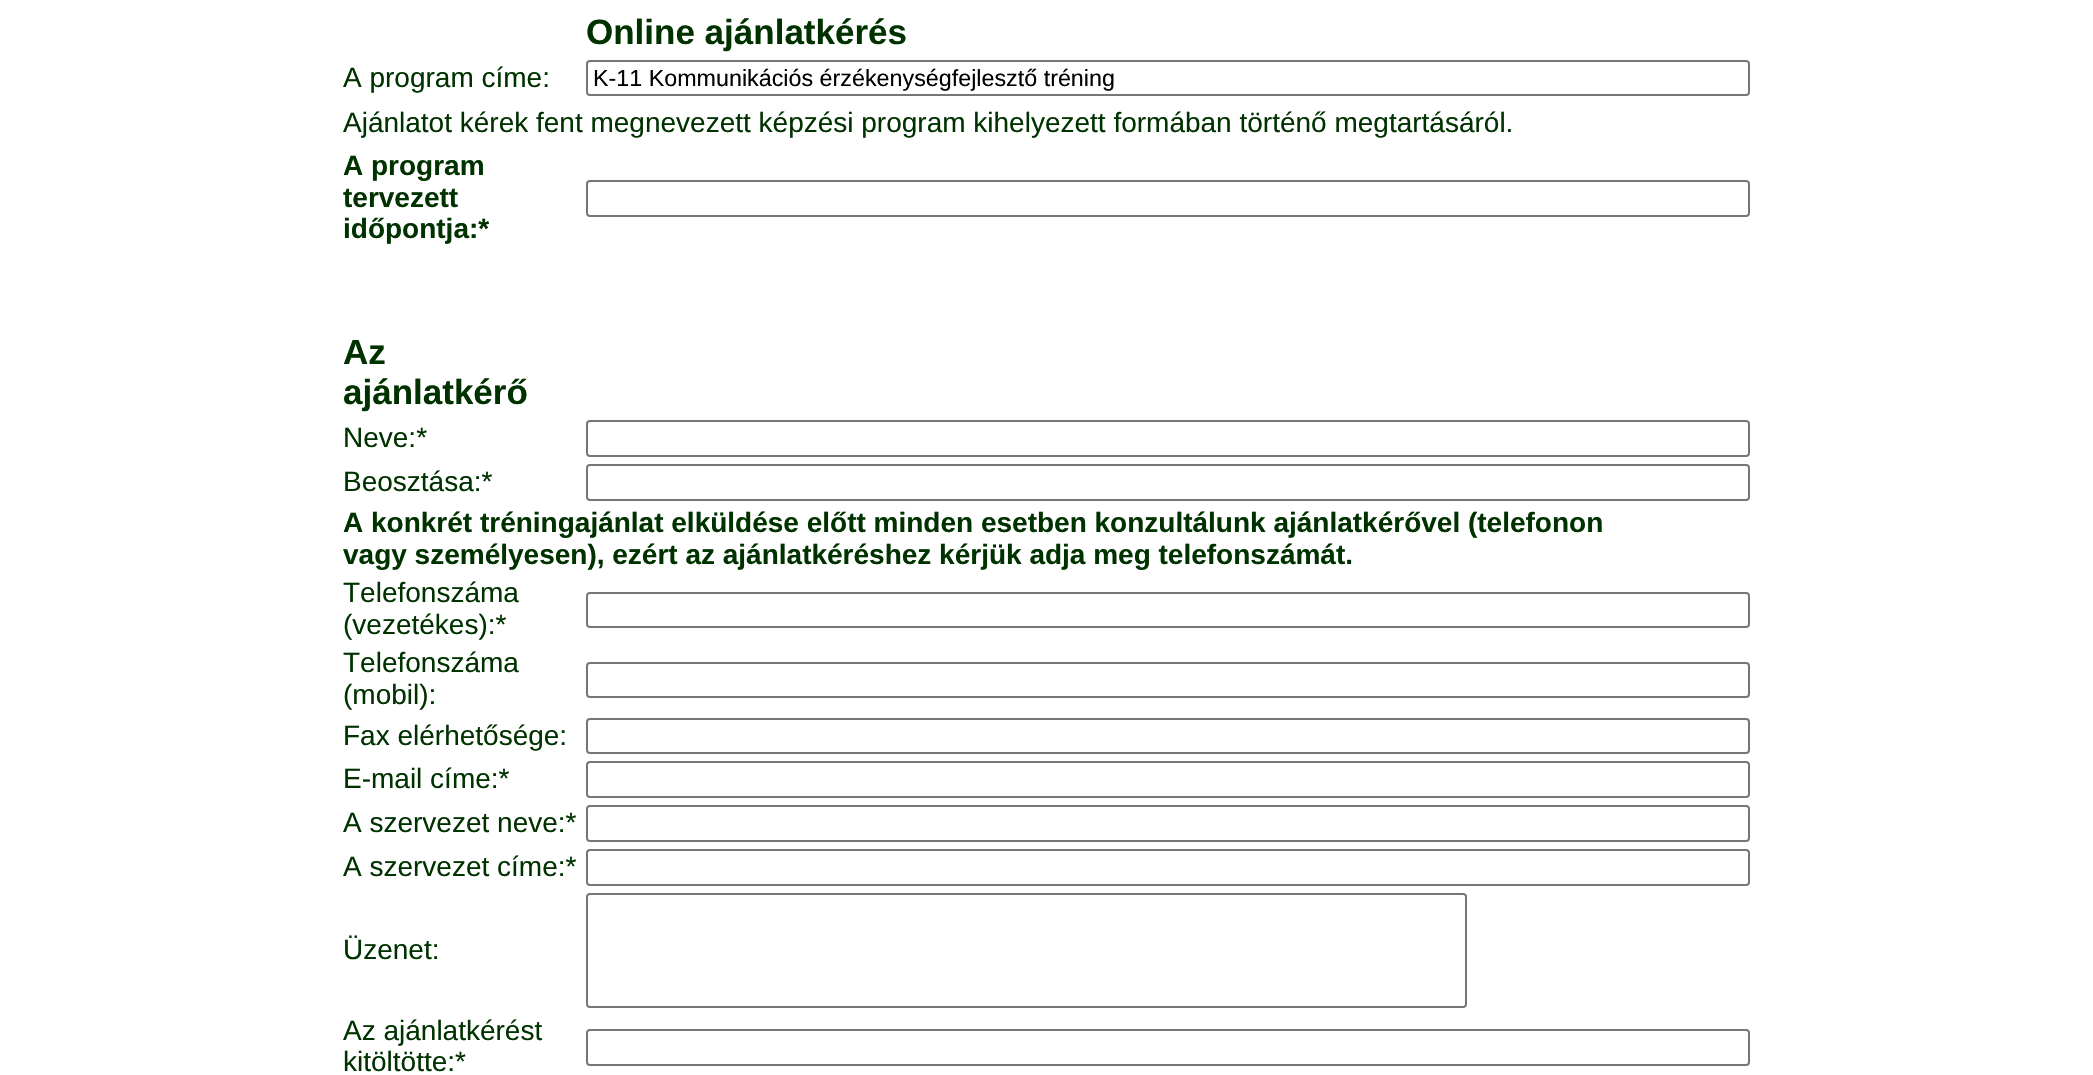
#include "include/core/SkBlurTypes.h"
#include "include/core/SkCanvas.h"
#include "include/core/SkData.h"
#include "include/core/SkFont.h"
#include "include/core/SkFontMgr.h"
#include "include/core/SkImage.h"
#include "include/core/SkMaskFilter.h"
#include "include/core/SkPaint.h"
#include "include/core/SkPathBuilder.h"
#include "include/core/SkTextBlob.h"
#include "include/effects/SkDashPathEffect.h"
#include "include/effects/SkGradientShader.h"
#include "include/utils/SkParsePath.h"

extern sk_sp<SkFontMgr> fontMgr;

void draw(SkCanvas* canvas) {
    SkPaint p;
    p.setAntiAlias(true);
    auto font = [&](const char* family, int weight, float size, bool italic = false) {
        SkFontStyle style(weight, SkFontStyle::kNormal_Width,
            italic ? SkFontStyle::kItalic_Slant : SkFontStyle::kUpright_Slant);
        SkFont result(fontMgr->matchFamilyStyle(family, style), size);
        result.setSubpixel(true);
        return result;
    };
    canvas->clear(0xFFFFFFFF);
    auto font1 = font("Liberation Sans", 700, 35);
    p.setColor(0xFF003200);
    canvas->drawString("Online ajánlatkérés", 586, 44, font1, p);
    auto font2 = font("Liberation Sans", 400, 28);
    canvas->drawString("A program címe:", 343, 87, font2, p);
    p.setStyle(SkPaint::kStroke_Style);
    p.setStrokeWidth(2);
    p.setColor(0xFF767676);
    canvas->drawRoundRect(SkRect::MakeLTRB(587, 61, 1749, 95), 3, 3, p);
    auto font3 = font("Liberation Sans", 400, 23.3f);
    p.setStyle(SkPaint::kFill_Style);
    p.setColor(0xFF000000);
    canvas->drawString("K-11 Kommunikációs érzékenységfejlesztő tréning", 593, 86, font3, p);
    p.setColor(0xFF003200);
    canvas->drawString("Ajánlatot kérek fent megnevezett képzési program kihelyezett formában történő megtartásáról.", 343, 132, font2, p);
    auto font4 = font("Liberation Sans", 700, 28);
    {
        const struct { const char* s; float x, y; } items[] = {
            {"A program", 343, 175},
            {"tervezett", 343, 207},
            {"időpontja:*", 343, 238},
        };
        for (auto [s, x, y] : items) {
            canvas->drawString(s, x, y, font4, p);
        }
    }
    p.setStyle(SkPaint::kStroke_Style);
    p.setColor(0xFF767676);
    canvas->drawRoundRect(SkRect::MakeLTRB(587, 181, 1749, 216), 3, 3, p);
    p.setStyle(SkPaint::kFill_Style);
    p.setColor(0xFF003200);
    canvas->drawString("Az", 343, 364, font1, p);
    canvas->drawString("ajánlatkérő", 343, 404, font1, p);
    canvas->drawString("Neve:*", 343, 447, font2, p);
    p.setStyle(SkPaint::kStroke_Style);
    p.setColor(0xFF767676);
    canvas->drawRoundRect(SkRect::MakeLTRB(587, 421, 1749, 456), 3, 3, p);
    p.setStyle(SkPaint::kFill_Style);
    p.setColor(0xFF003200);
    canvas->drawString("Beosztása:*", 343, 491, font2, p);
    p.setStyle(SkPaint::kStroke_Style);
    p.setColor(0xFF767676);
    canvas->drawRoundRect(SkRect::MakeLTRB(587, 465, 1749, 500), 3, 3, p);
    p.setStyle(SkPaint::kFill_Style);
    p.setColor(0xFF003200);
    canvas->drawString("A konkrét tréningajánlat elküldése előtt minden esetben konzultálunk ajánlatkérővel (telefonon", 343, 532, font4, p);
    canvas->drawString("vagy személyesen), ezért az ajánlatkéréshez kérjük adja meg telefonszámát.", 343, 564, font4, p);
    canvas->drawString("Telefonszáma", 343, 602, font2, p);
    canvas->drawString("(vezetékes):*", 343, 634, font2, p);
    p.setStyle(SkPaint::kStroke_Style);
    p.setColor(0xFF767676);
    canvas->drawRoundRect(SkRect::MakeLTRB(587, 593, 1749, 627), 3, 3, p);
    p.setStyle(SkPaint::kFill_Style);
    p.setColor(0xFF003200);
    canvas->drawString("Telefonszáma", 343, 672, font2, p);
    canvas->drawString("(mobil):", 343, 704, font2, p);
    p.setStyle(SkPaint::kStroke_Style);
    p.setColor(0xFF767676);
    canvas->drawRoundRect(SkRect::MakeLTRB(587, 663, 1749, 697), 3, 3, p);
    p.setStyle(SkPaint::kFill_Style);
    p.setColor(0xFF003200);
    canvas->drawString("Fax elérhetősége:", 343, 745, font2, p);
    p.setStyle(SkPaint::kStroke_Style);
    p.setColor(0xFF767676);
    canvas->drawRoundRect(SkRect::MakeLTRB(587, 719, 1749, 753), 3, 3, p);
    p.setStyle(SkPaint::kFill_Style);
    p.setColor(0xFF003200);
    canvas->drawString("E-mail címe:*", 343, 788, font2, p);
    p.setStyle(SkPaint::kStroke_Style);
    p.setColor(0xFF767676);
    canvas->drawRoundRect(SkRect::MakeLTRB(587, 762, 1749, 797), 3, 3, p);
    p.setStyle(SkPaint::kFill_Style);
    p.setColor(0xFF003200);
    canvas->drawString("A szervezet neve:*", 343, 832, font2, p);
    p.setStyle(SkPaint::kStroke_Style);
    p.setColor(0xFF767676);
    canvas->drawRoundRect(SkRect::MakeLTRB(587, 806, 1749, 841), 3, 3, p);
    p.setStyle(SkPaint::kFill_Style);
    p.setColor(0xFF003200);
    canvas->drawString("A szervezet címe:*", 343, 876, font2, p);
    p.setStyle(SkPaint::kStroke_Style);
    p.setColor(0xFF767676);
    canvas->drawRoundRect(SkRect::MakeLTRB(587, 850, 1749, 885), 3, 3, p);
    p.setStyle(SkPaint::kFill_Style);
    p.setColor(0xFF003200);
    canvas->drawString("Üzenet:", 343, 959, font2, p);
    p.setStyle(SkPaint::kStroke_Style);
    p.setColor(0xFF767676);
    canvas->drawRoundRect(SkRect::MakeLTRB(587, 894, 1466, 1007), 3, 3, p);
    p.setStyle(SkPaint::kFill_Style);
    p.setColor(0xFF003200);
    canvas->drawString("Az ajánlatkérést", 343, 1040, font2, p);
    canvas->drawString("kitöltötte:*", 343, 1071, font2, p);
    p.setStyle(SkPaint::kStroke_Style);
    p.setColor(0xFF767676);
    canvas->drawRoundRect(SkRect::MakeLTRB(587, 1030, 1749, 1065), 3, 3, p);
}
